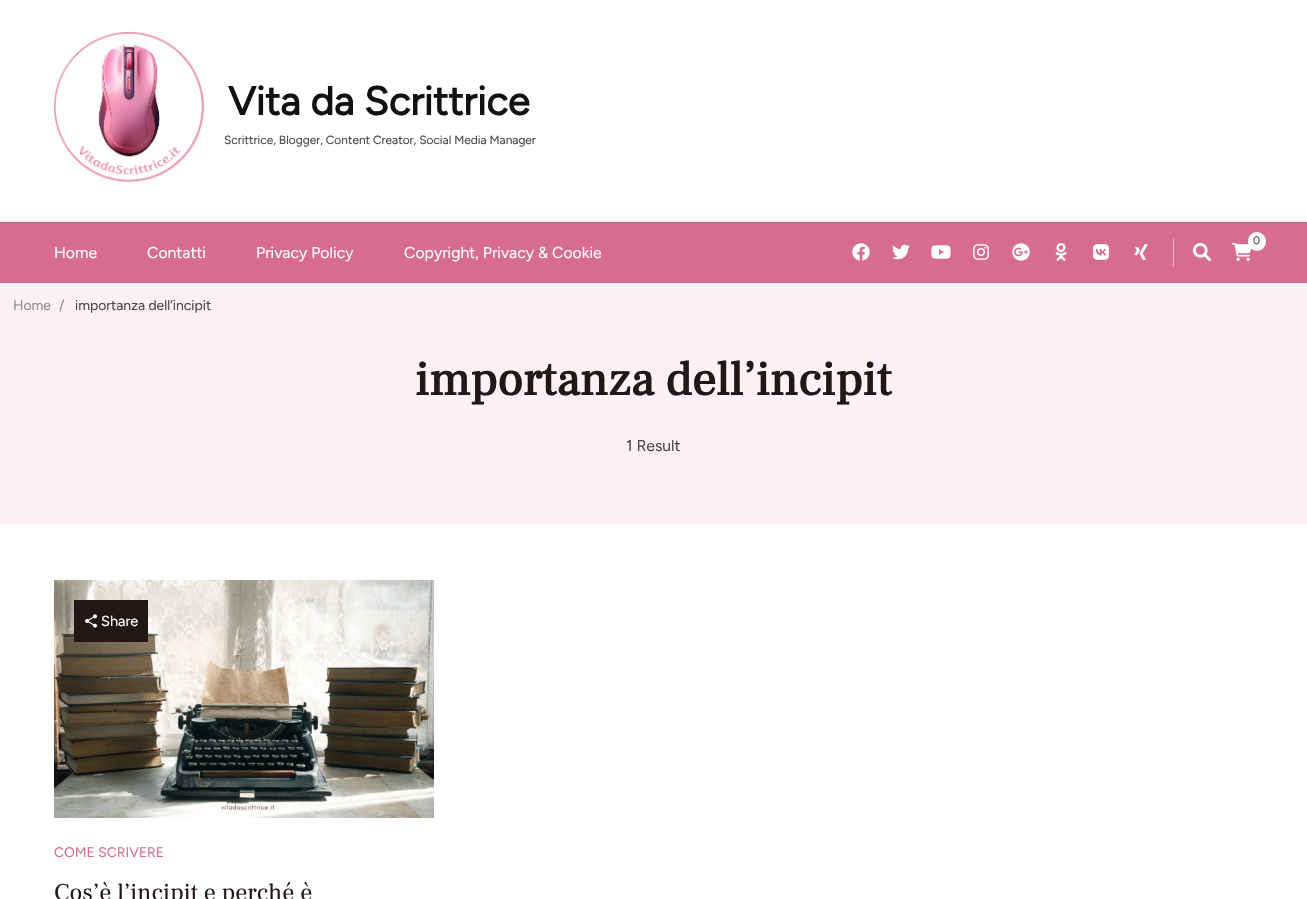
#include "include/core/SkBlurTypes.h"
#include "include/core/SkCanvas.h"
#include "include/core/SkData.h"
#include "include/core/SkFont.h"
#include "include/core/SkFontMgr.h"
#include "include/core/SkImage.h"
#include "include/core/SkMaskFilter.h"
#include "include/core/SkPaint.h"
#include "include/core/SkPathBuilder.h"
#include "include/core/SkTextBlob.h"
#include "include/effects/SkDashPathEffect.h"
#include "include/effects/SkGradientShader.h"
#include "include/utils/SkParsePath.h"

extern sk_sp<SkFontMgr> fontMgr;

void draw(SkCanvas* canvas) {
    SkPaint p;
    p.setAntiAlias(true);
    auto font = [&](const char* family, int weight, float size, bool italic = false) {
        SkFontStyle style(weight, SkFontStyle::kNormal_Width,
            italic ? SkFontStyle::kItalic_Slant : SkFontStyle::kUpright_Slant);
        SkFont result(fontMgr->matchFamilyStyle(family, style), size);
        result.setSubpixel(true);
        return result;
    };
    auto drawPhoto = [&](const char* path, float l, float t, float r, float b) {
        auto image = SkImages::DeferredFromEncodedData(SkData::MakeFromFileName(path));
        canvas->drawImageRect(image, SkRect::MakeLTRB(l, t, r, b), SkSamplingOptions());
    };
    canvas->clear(0xFFFFFFFF);
    drawPhoto("media/1.png", 54, 32, 204, 182);
    auto font1 = font("Figtree", 700, 40);
    p.setColor(0xFF111111);
    canvas->drawString("Vita da Scrittrice", 228, 115, font1, p);
    auto font2 = font("Figtree", 300, 11.9f);
    p.setColor(0xFF4D4644);
    canvas->drawString("Scrittrice, Blogger, Content Creator, Social Media Manager", 224, 144, font2, p);
    {
        const struct { float l, t, r, b; SkColor color; } items[] = {
            {0, 223, 1307, 283, 0xFFD86B91},
            {0, 222, 1307, 223, 0xFFCA6789},
            {1173, 239, 1174, 267, 0xFFECB5C8},
        };
        for (auto [l, t, r, b, color] : items) {
            p.setColor(color);
            canvas->drawRect(SkRect::MakeLTRB(l, t, r, b), p);
        }
    }
    drawPhoto("media/2.png", 1231, 243, 1252, 261);
    p.setColor(0xFFFFFFFF);
    canvas->drawRoundRect(SkRect::MakeLTRB(1248, 232, 1266, 251), 9, 9, p);
    auto font3 = font("Figtree", 300, 11);
    p.setColor(0xFF4D4644);
    canvas->drawString("0", 1253, 244, font3, p);
    drawPhoto("media/3.png", 1193, 243, 1211, 261);
    drawPhoto("media/4.png", 852, 243, 870, 261);
    drawPhoto("media/5.png", 892, 244, 910, 260);
    drawPhoto("media/6.png", 931, 245, 951, 259);
    drawPhoto("media/7.png", 973, 244, 989, 260);
    drawPhoto("media/8.png", 1012, 243, 1030, 261);
    drawPhoto("media/9.png", 1055, 243, 1067, 261);
    drawPhoto("media/10.png", 1093, 244, 1109, 260);
    drawPhoto("media/11.png", 1134, 244, 1148, 260);
    auto font4 = font("Figtree", 300, 15.8f);
    p.setColor(0xFFFFFFFF);
    {
        const struct { const char* s; float x, y; } items[] = {
            {"Home", 54, 258},
            {"Contatti", 147, 258},
            {"Privacy Policy", 256, 258},
            {"Copyright, Privacy & Cookie", 404, 258},
        };
        for (auto [s, x, y] : items) {
            canvas->drawString(s, x, y, font4, p);
        }
    }
    p.setColor(0xFFFCF1F5);
    canvas->drawRect(SkRect::MakeLTRB(0, 283, 1307, 524), p);
    auto font5 = font("Figtree", 300, 13.9f);
    p.setColor(0xFF938A8B);
    canvas->drawString("Home", 13, 310, font5, p);
    canvas->drawString("/", 59, 310, font5, p);
    p.setColor(0xFF4D4644);
    canvas->drawString("importanza dell’incipit", 75, 310, font5, p);
    auto font6 = font("Frank Ruhl Libre", 700, 48);
    p.setColor(0xFF211815);
    canvas->drawString("importanza dell’incipit", 415, 395, font6, p);
    p.setColor(0xFF4D4644);
    canvas->drawString("1 Result", 626, 451, font4, p);
    drawPhoto("media/12.png", 54, 580, 434, 818);
    p.setColor(0xFF211815);
    canvas->drawRect(SkRect::MakeLTRB(74, 600, 148, 642), p);
    drawPhoto("media/13.png", 85, 614, 97, 628);
    auto font7 = font("Figtree", 300, 14.5f);
    p.setColor(0xFFFFFFFF);
    canvas->drawString("Share", 101, 626, font7, p);
    p.setColor(0xFFD86B91);
    canvas->drawString("COME SCRIVERE", 54, 857, font5, p);
    auto font8 = font("Frank Ruhl Libre", 400, 24);
    p.setColor(0xFF211815);
    canvas->drawString("Cos’è l’incipit e perché è", 54, 900, font8, p);
}
